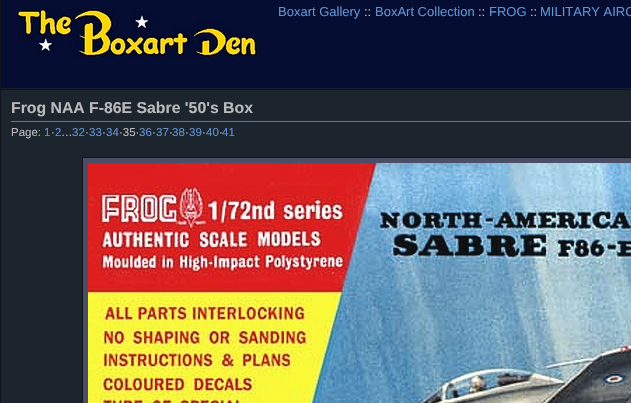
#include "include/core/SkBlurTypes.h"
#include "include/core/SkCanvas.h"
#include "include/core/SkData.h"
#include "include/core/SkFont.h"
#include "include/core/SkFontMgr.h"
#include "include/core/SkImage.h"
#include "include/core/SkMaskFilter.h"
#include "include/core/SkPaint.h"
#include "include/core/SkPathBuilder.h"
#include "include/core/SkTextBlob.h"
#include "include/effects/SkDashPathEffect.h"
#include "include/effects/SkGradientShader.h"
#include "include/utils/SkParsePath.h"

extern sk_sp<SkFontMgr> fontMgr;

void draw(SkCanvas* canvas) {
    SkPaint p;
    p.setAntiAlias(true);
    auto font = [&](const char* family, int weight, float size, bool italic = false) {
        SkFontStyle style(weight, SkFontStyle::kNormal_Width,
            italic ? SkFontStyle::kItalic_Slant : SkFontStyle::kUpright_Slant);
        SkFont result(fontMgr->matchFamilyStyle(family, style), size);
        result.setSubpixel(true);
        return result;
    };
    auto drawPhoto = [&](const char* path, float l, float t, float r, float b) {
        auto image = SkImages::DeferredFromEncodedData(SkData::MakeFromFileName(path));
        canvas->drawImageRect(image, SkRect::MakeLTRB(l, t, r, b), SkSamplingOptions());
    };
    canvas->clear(0xFF1C242E);
    drawPhoto("media/1.png", 1, 0, 631, 90);
    drawPhoto("media/2.png", 17, 8, 257, 58);
    auto font1 = font("Liberation Sans", 400, 13);
    p.setColor(0xFF6392CF);
    canvas->drawString("Boxart Gallery", 278, 16, font1, p);
    p.setColor(0xFFBBBBBB);
    canvas->drawString("::", 364, 16, font1, p);
    p.setColor(0xFF6392CF);
    canvas->drawString("BoxArt Collection", 375, 16, font1, p);
    p.setColor(0xFFBBBBBB);
    canvas->drawString("::", 478, 16, font1, p);
    p.setColor(0xFF6392CF);
    canvas->drawString("FROG", 489, 16, font1, p);
    p.setColor(0xFFBBBBBB);
    canvas->drawString("::", 530, 16, font1, p);
    p.setColor(0xFF6392CF);
    canvas->drawString("MILITARY AIRC", 540, 16, font1, p);
    p.setColor(0xFF10151C);
    canvas->drawRect(SkRect::MakeLTRB(0, 0, 1, 403), p);
    p.setColor(0xFF737373);
    canvas->drawRect(SkRect::MakeLTRB(11, 121, 631, 122), p);
    auto font2 = font("Liberation Sans", 700, 15.8f);
    p.setColor(0xFFBBBBBB);
    canvas->drawString("Frog NAA F-86E Sabre '50's Box", 11, 113, font2, p);
    auto font3 = font("Liberation Sans", 400, 11.5f);
    canvas->drawString("Page:", 11, 136, font3, p);
    p.setColor(0xFF6392CF);
    canvas->drawString("1", 44, 136, font3, p);
    p.setColor(0xFFBBBBBB);
    canvas->drawString("·", 51, 136, font3, p);
    p.setColor(0xFF6392CF);
    canvas->drawString("2", 55, 136, font3, p);
    canvas->drawString("32", 72, 136, font3, p);
    p.setColor(0xFFBBBBBB);
    canvas->drawString("·", 85, 136, font3, p);
    p.setColor(0xFF6392CF);
    canvas->drawString("33", 89, 136, font3, p);
    p.setColor(0xFFBBBBBB);
    canvas->drawString("·", 102, 136, font3, p);
    p.setColor(0xFF6392CF);
    canvas->drawString("34", 106, 136, font3, p);
    p.setColor(0xFFBBBBBB);
    canvas->drawString("·35·", 119, 136, font3, p);
    p.setColor(0xFF6392CF);
    canvas->drawString("36", 139, 136, font3, p);
    p.setColor(0xFFBBBBBB);
    canvas->drawString("·", 152, 136, font3, p);
    p.setColor(0xFF6392CF);
    canvas->drawString("37", 156, 136, font3, p);
    p.setColor(0xFFBBBBBB);
    canvas->drawString("·", 169, 136, font3, p);
    p.setColor(0xFF6392CF);
    canvas->drawString("38", 172, 136, font3, p);
    p.setColor(0xFFBBBBBB);
    canvas->drawString("·", 185, 136, font3, p);
    p.setColor(0xFF6392CF);
    canvas->drawString("39", 189, 136, font3, p);
    p.setColor(0xFFBBBBBB);
    canvas->drawString("·", 202, 136, font3, p);
    p.setColor(0xFF6392CF);
    canvas->drawString("40", 206, 136, font3, p);
    p.setColor(0xFFBBBBBB);
    canvas->drawString("·", 219, 136, font3, p);
    p.setColor(0xFF6392CF);
    canvas->drawString("41", 222, 136, font3, p);
    p.setColor(0xFFBBBBBB);
    canvas->drawString("…", 61, 136, font3, p);
    p.setColor(0xFF4A4E67);
    canvas->drawRect(SkRect::MakeLTRB(82.5f, 157.5f, 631.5f, 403.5f), p);
    p.setStyle(SkPaint::kStroke_Style);
    p.setStrokeWidth(1);
    p.setColor(0xFF10151C);
    canvas->drawRect(SkRect::MakeLTRB(82.5f, 157.5f, 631.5f, 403.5f), p);
    drawPhoto("media/3.png", 88, 163, 631, 403);
}
